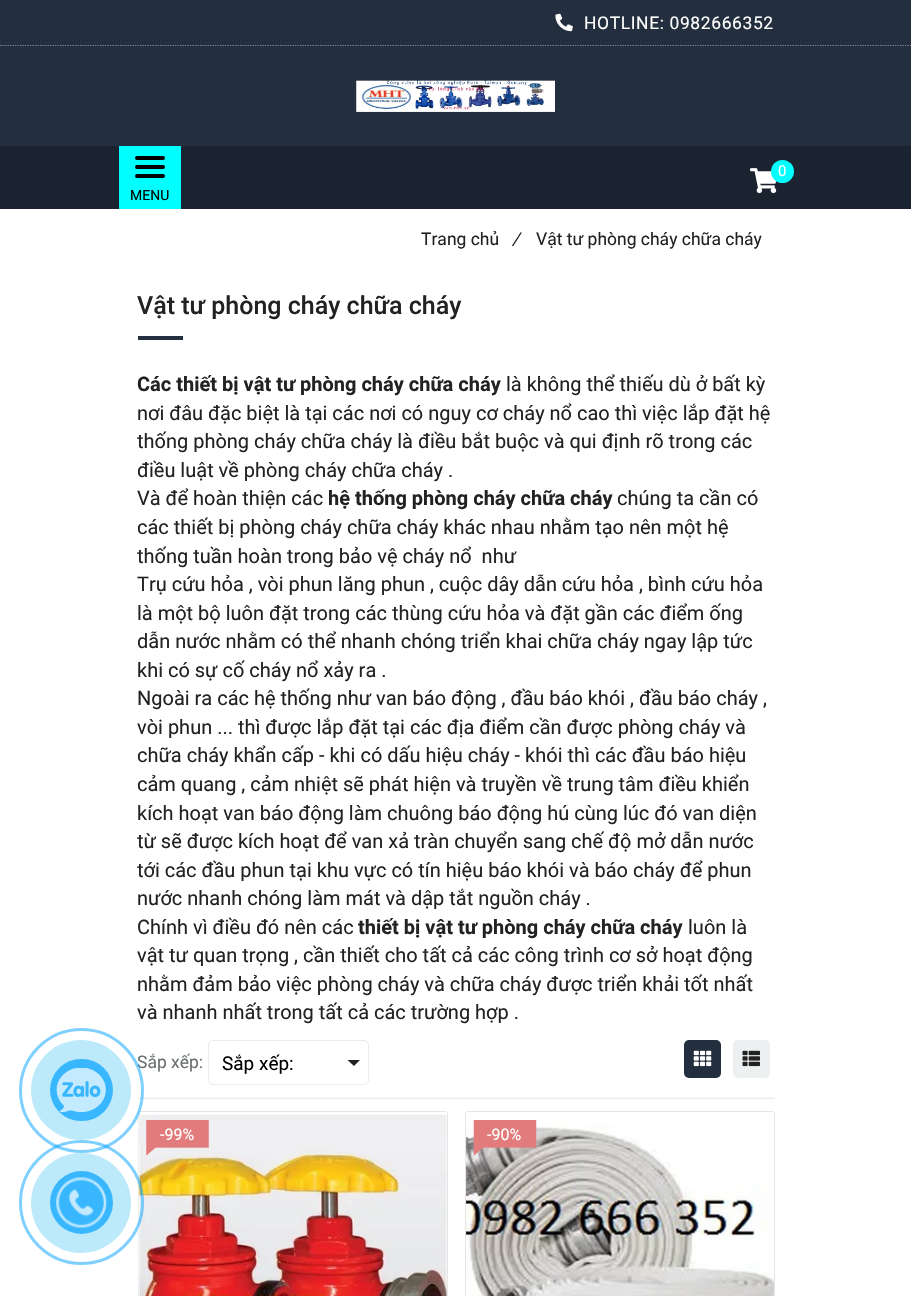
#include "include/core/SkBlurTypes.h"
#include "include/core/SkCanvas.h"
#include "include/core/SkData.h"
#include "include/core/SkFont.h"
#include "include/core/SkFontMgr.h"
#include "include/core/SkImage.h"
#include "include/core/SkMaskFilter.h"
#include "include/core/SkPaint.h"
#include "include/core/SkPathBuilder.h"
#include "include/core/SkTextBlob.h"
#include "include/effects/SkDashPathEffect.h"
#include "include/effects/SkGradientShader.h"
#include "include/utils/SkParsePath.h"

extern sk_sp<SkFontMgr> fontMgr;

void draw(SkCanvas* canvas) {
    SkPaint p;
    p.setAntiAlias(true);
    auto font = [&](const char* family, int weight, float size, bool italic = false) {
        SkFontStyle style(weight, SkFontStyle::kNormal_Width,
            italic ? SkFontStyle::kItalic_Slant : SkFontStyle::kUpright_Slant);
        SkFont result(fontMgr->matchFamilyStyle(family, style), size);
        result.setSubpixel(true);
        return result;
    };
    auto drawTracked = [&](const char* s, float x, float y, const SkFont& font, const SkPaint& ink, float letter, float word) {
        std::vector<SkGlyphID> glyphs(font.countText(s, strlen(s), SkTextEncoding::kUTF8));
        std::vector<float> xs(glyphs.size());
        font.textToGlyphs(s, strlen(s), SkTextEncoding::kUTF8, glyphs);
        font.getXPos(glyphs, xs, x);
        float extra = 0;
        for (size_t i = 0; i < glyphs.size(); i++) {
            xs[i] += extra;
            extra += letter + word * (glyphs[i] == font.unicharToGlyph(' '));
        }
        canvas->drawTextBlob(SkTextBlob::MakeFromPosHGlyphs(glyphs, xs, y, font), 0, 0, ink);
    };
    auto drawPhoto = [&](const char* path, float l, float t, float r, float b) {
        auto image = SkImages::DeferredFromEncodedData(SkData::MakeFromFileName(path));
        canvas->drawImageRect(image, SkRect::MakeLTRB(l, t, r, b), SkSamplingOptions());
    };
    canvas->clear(0xFFFFFFFF);
    auto font1 = font("Roboto", 400, 17.5f);
    p.setColor(0xFF696E6E);
    canvas->drawString("Sắp xếp:", 137, 1068, font1, p);
    p.setColor(0xFFECF0F1);
    canvas->drawRect(SkRect::MakeLTRB(138, 1098, 775, 1099), p);
    p.setStyle(SkPaint::kStroke_Style);
    p.setStrokeWidth(1.2f);
    p.setColor(0xFFE2E6E7);
    p.setPathEffect(SkDashPathEffect::Make({{1.25f, 1.25f}}, 0));
    canvas->drawPath(SkPathBuilder().moveTo(137.5f, 1098).lineTo(775, 1098).detach(), p);
    p.setPathEffect(nullptr);
    p.setStrokeWidth(1);
    p.setColor(0xFFE5E5E5);
    canvas->drawRoundRect(SkRect::MakeLTRB(138.5f, 1111.5f, 447.5f, 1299.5f), 2, 2, p);
    drawPhoto("media/7.png", 138, 1112, 447, 1296);
    drawPhoto("media/8.png", 138, 1113, 447, 1296);
    p.setStrokeWidth(3);
    p.setColor(0x8000A1FF);
    canvas->drawCircle(81.5f, 1202.5f, 61, p);
    canvas->drawCircle(81.5f, 1090.5f, 61, p);
    p.setStyle(SkPaint::kFill_Style);
    p.setColor(0xFFBCEAFB);
    canvas->drawCircle(81, 1090, 50, p);
    p.setColor(0xFF38B7FE);
    canvas->drawRoundRect(SkRect::MakeLTRB(50, 1059, 113, 1121), 31, 31, p);
    drawPhoto("media/1.png", 56, 1068, 106, 1113);
    p.setColor(0xFF232F3E);
    canvas->drawRect(SkRect::MakeLTRB(0, 0, 911, 46), p);
    p.setStyle(SkPaint::kStroke_Style);
    p.setStrokeWidth(1.2f);
    p.setColor(0xFF868D95);
    p.setPathEffect(SkDashPathEffect::Make({{1.25f, 1.25f}}, 0));
    canvas->drawPath(SkPathBuilder().moveTo(0, 45.5f).lineTo(911, 45.5f).detach(), p);
    p.setPathEffect(nullptr);
    drawPhoto("media/2.png", 555, 13, 573, 32);
    p.setStyle(SkPaint::kFill_Style);
    p.setColor(0xFFFFFFFF);
    drawTracked("HOTLINE: 0982666352", 584, 29, font1, p, 0.6f, 0);
    p.setColor(0xFF232F3E);
    canvas->drawRect(SkRect::MakeLTRB(0, 46, 911, 146), p);
    p.setColor(0xFF1A232F);
    canvas->drawRect(SkRect::MakeLTRB(0, 146, 911, 209), p);
    drawPhoto("media/3.png", 356, 80, 555, 112);
    drawPhoto("media/4.png", 750, 168, 777, 194);
    p.setColor(0xFF00FFFF);
    canvas->drawCircle(782.5f, 171.5f, 11.5f, p);
    auto font2 = font("Roboto", 400, 15);
    p.setColor(0xFFFFFFFF);
    canvas->drawString("0", 778, 176, font2, p);
    p.setColor(0xFF00FFFF);
    canvas->drawRect(SkRect::MakeLTRB(119, 146, 181, 209), p);
    p.setColor(0xFF000000);
    canvas->drawRoundRect(SkRect::MakeLTRB(135, 165, 165, 169), 2, 2, p);
    canvas->drawRoundRect(SkRect::MakeLTRB(135, 156, 165, 160), 2, 2, p);
    canvas->drawRoundRect(SkRect::MakeLTRB(135, 174, 165, 178), 2, 2, p);
    auto font3 = font("Roboto", 400, 14);
    canvas->drawString("MENU", 130, 200, font3, p);
    p.setColor(0xFF222222);
    canvas->drawString("Trang chủ", 421, 245, font1, p);
    auto font4 = font("Roboto", 400, 17.5f, true);
    canvas->drawString("/", 512, 245, font4, p);
    canvas->drawString("Vật tư phòng cháy chữa cháy", 536, 245, font1, p);
    auto font5 = font("Roboto", 500, 25);
    canvas->drawString("Vật tư phòng cháy chữa cháy", 137, 314, font5, p);
    p.setColor(0xFF232F3E);
    canvas->drawRect(SkRect::MakeLTRB(138, 336, 183, 340), p);
    auto font6 = font("Roboto", 700, 20);
    p.setColor(0xFF222222);
    canvas->drawString("Các thiết bị vật tư phòng cháy chữa cháy", 137, 391, font6, p);
    auto font7 = font("Roboto", 400, 20);
    {
        const struct { const char* s; float x, y; } items[] = {
            {"là không thể thiếu dù ở bất kỳ", 506, 391},
            {"nơi đâu đặc biệt là tại các nơi có nguy cơ cháy nổ cao thì việc lắp đặt hệ", 137, 420},
            {"thống phòng cháy chữa cháy là điều bắt buộc và qui định rõ trong các", 137, 448},
            {"điều luật về phòng cháy chữa cháy .", 137, 477},
            {"Và để hoàn thiện các", 137, 505},
        };
        for (auto [s, x, y] : items) {
            canvas->drawString(s, x, y, font7, p);
        }
    }
    canvas->drawString("hệ thống phòng cháy chữa cháy", 328, 505, font6, p);
    {
        const struct { const char* s; float x, y; } items[] = {
            {"chúng ta cần có", 617, 505},
            {"các thiết bị phòng cháy chữa cháy khác nhau nhằm tạo nên một hệ", 137, 534},
            {"thống tuần hoàn trong bảo vệ cháy nổ  như", 137, 563},
            {"Trụ cứu hỏa , vòi phun lăng phun , cuộc dây dẫn cứu hỏa , bình cứu hỏa", 137, 591},
            {"là một bộ luôn đặt trong các thùng cứu hỏa và đặt gần các điểm ống", 137, 620},
            {"dẫn nước nhằm có thể nhanh chóng triển khai chữa cháy ngay lập tức", 137, 648},
            {"khi có sự cố cháy nổ xảy ra .", 137, 677},
            {"Ngoài ra các hệ thống như van báo động , đầu báo khói , đầu báo cháy ,", 137, 705},
            {"vòi phun ... thì được lắp đặt tại các địa điểm cần được phòng cháy và", 137, 734},
            {"chữa cháy khẩn cấp - khi có dấu hiệu cháy - khói thì các đầu báo hiệu", 137, 762},
            {"cảm quang , cảm nhiệt sẽ phát hiện và truyền về trung tâm điều khiển", 137, 791},
            {"kích hoạt van báo động làm chuông báo động hú cùng lúc đó van diện", 137, 820},
            {"từ sẽ được kích hoạt để van xả tràn chuyển sang chế độ mở dẫn nước", 137, 848},
            {"tới các đầu phun tại khu vực có tín hiệu báo khói và báo cháy để phun", 137, 877},
            {"nước nhanh chóng làm mát và dập tắt nguồn cháy .", 137, 905},
            {"Chính vì điều đó nên các", 137, 934},
        };
        for (auto [s, x, y] : items) {
            canvas->drawString(s, x, y, font7, p);
        }
    }
    canvas->drawString("thiết bị vật tư phòng cháy chữa cháy", 358, 934, font6, p);
    {
        const struct { const char* s; float x, y; } items[] = {
            {"luôn là", 688, 934},
            {"vật tư quan trọng , cần thiết cho tất cả các công trình cơ sở hoạt động", 137, 962},
            {"nhằm đảm bảo việc phòng cháy và chữa cháy được triển khải tốt nhất", 137, 991},
            {"và nhanh nhất trong tất cả các trường hợp .", 137, 1019},
        };
        for (auto [s, x, y] : items) {
            canvas->drawString(s, x, y, font7, p);
        }
    }
    p.setStyle(SkPaint::kStroke_Style);
    p.setStrokeWidth(1);
    p.setColor(0xFFEBEBEB);
    canvas->drawRoundRect(SkRect::MakeLTRB(208.5f, 1040.5f, 368.5f, 1084.5f), 4.5f, 4.5f, p);
    auto font8 = font("Roboto", 400, 19);
    p.setStyle(SkPaint::kFill_Style);
    p.setColor(0xFF000000);
    canvas->drawString("Sắp xếp:", 222, 1070, font8, p);
    p.setColor(0xFF222222);
    canvas->drawPath(SkPathBuilder().moveTo(347.5f, 1060).lineTo(360, 1060).lineTo(354, 1066).close().detach(), p);
    p.setColor(0xFF232F3E);
    canvas->drawRoundRect(SkRect::MakeLTRB(684, 1040, 721, 1078), 5, 5, p);
    drawPhoto("media/5.png", 693, 1050, 712, 1067);
    p.setColor(0xFFECF0F1);
    canvas->drawRoundRect(SkRect::MakeLTRB(733, 1040, 770, 1078), 5, 5, p);
    drawPhoto("media/6.png", 742, 1050, 760, 1067);
    drawPhoto("media/9.png", 146, 1120, 209, 1156);
    auto font9 = font("Roboto", 400, 16);
    p.setColor(0xFFFFFFFF);
    canvas->drawString("-99%", 160, 1140, font9, p);
    p.setStyle(SkPaint::kStroke_Style);
    p.setColor(0xFFE5E5E5);
    canvas->drawRoundRect(SkRect::MakeLTRB(465.5f, 1111.5f, 774.5f, 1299.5f), 2, 2, p);
    drawPhoto("media/10.png", 466, 1112, 774, 1296);
    drawPhoto("media/11.png", 466, 1137, 774, 1296);
    drawPhoto("media/12.png", 473, 1120, 537, 1156);
    p.setStyle(SkPaint::kFill_Style);
    p.setColor(0xFFFFFFFF);
    canvas->drawString("-90%", 487, 1140, font9, p);
    p.setColor(0xFFBCEAFB);
    canvas->drawCircle(81, 1203, 50, p);
    p.setColor(0xFF38B7FE);
    canvas->drawCircle(81.5f, 1202.5f, 31.5f, p);
    drawPhoto("media/13.png", 56, 1177, 107, 1229);
}
